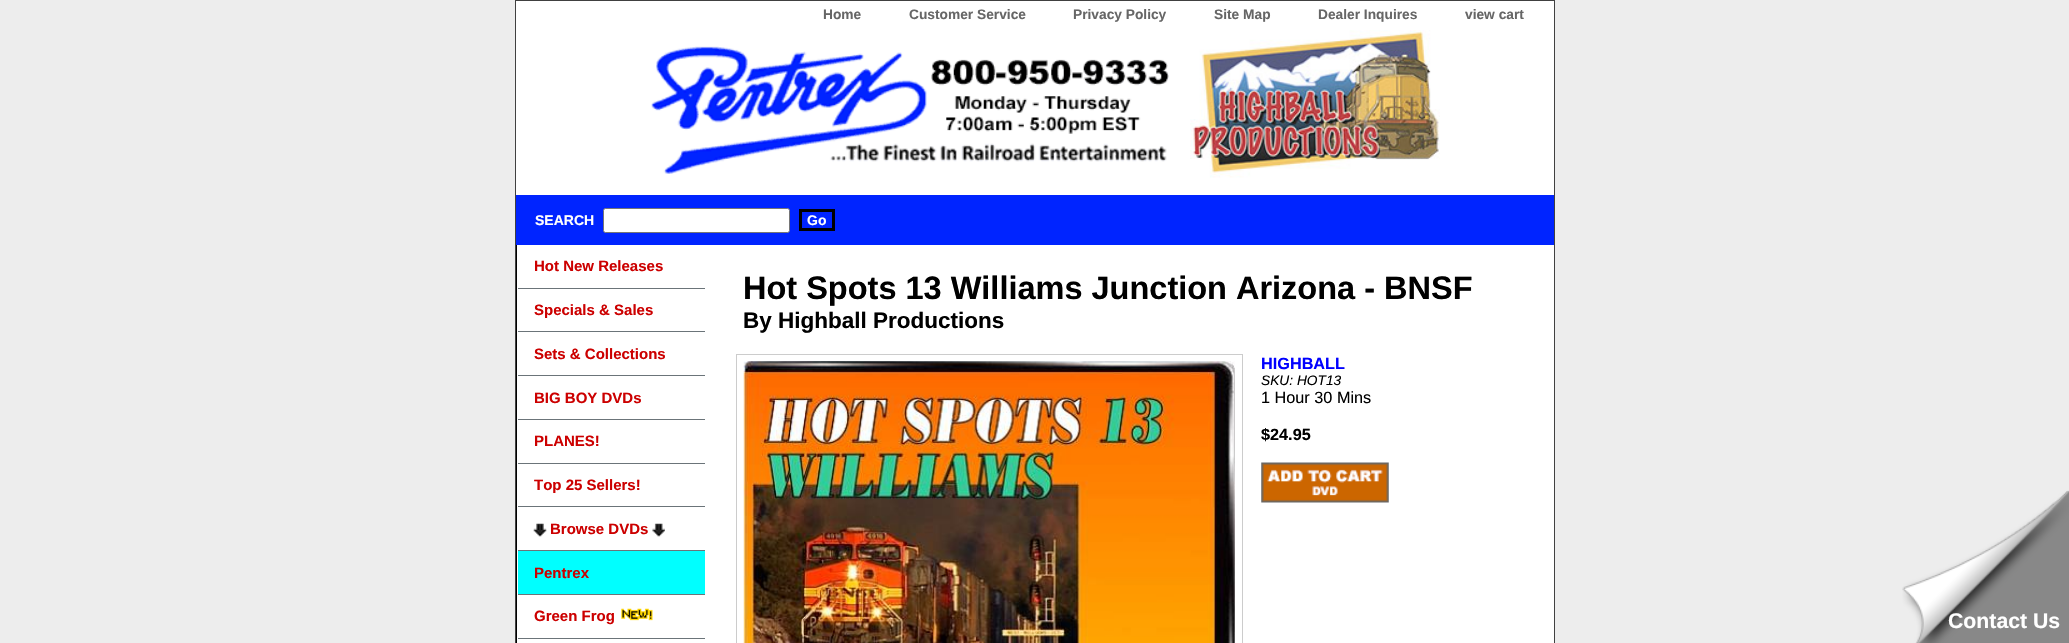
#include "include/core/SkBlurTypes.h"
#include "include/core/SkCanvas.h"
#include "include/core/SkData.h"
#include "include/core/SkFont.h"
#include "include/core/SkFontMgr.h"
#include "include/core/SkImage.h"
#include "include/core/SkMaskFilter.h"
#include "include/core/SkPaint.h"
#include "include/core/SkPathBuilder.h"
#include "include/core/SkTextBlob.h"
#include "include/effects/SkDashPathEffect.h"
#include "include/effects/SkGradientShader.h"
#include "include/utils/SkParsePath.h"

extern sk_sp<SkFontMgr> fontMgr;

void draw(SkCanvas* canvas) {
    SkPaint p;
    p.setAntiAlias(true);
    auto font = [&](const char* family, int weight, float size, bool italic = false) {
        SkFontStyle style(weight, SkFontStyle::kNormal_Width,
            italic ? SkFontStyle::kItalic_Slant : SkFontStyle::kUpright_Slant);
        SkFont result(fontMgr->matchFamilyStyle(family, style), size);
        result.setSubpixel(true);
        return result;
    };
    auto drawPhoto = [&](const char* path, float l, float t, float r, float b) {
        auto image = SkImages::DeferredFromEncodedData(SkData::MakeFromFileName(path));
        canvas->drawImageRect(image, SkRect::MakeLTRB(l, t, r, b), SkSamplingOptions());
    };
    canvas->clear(0xFFEDEDED);
    p.setColor(0xFFFFFFFF);
    canvas->drawRect(SkRect::MakeLTRB(515.5f, 0.5f, 1554.5f, 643.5f), p);
    p.setStyle(SkPaint::kStroke_Style);
    p.setStrokeWidth(1);
    p.setColor(0xFF404040);
    canvas->drawRect(SkRect::MakeLTRB(515.5f, 0.5f, 1554.5f, 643.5f), p);
    auto font1 = font("Liberation Sans", 700, 13.75f);
    p.setStyle(SkPaint::kFill_Style);
    p.setColor(0xFF666666);
    {
        const struct { const char* s; float x, y; } items[] = {
            {"Home", 823, 19},
            {"Customer Service", 909, 19},
            {"Privacy Policy", 1073, 19},
            {"Site Map", 1214, 19},
            {"Dealer Inquires", 1318, 19},
            {"view cart", 1465, 19},
        };
        for (auto [s, x, y] : items) {
            canvas->drawString(s, x, y, font1, p);
        }
    }
    drawPhoto("media/1.png", 651, 46, 1169, 174);
    drawPhoto("media/2.png", 1190, 30, 1440, 178);
    p.setColor(0xFF0024FF);
    canvas->drawRect(SkRect::MakeLTRB(516, 195, 1554, 245), p);
    auto font2 = font("Liberation Sans", 700, 14);
    p.setColor(0xFFFFFFFF);
    canvas->drawString("SEARCH", 535, 225, font2, p);
    canvas->drawRoundRect(SkRect::MakeLTRB(603.5f, 208.5f, 789.5f, 232.5f), 2, 2, p);
    p.setStyle(SkPaint::kStroke_Style);
    p.setColor(0xFF767676);
    canvas->drawRoundRect(SkRect::MakeLTRB(603.5f, 208.5f, 789.5f, 232.5f), 2, 2, p);
    p.setStrokeWidth(3);
    p.setColor(0xFF000000);
    canvas->drawRect(SkRect::MakeLTRB(800.5f, 210.5f, 833.5f, 229.5f), p);
    p.setStyle(SkPaint::kFill_Style);
    p.setColor(0xFFFFFFFF);
    canvas->drawString("Go", 807, 225, font2, p);
    p.setColor(0xFF000000);
    canvas->drawRect(SkRect::MakeLTRB(516, 245, 517, 643), p);
    p.setColor(0xFF6B7479);
    canvas->drawRect(SkRect::MakeLTRB(518, 288, 705, 289), p);
    auto font3 = font("Liberation Sans", 700, 15);
    p.setColor(0xFFCC0000);
    canvas->drawString("Hot New Releases", 534, 271, font3, p);
    p.setColor(0xFF6B7479);
    canvas->drawRect(SkRect::MakeLTRB(518, 331, 705, 332), p);
    p.setColor(0xFFCC0000);
    canvas->drawString("Specials & Sales", 534, 315, font3, p);
    p.setColor(0xFF6B7479);
    canvas->drawRect(SkRect::MakeLTRB(518, 375, 705, 376), p);
    p.setColor(0xFFCC0000);
    canvas->drawString("Sets & Collections", 534, 359, font3, p);
    p.setColor(0xFF6B7479);
    canvas->drawRect(SkRect::MakeLTRB(518, 419, 705, 420), p);
    p.setColor(0xFFCC0000);
    canvas->drawString("BIG BOY DVDs", 534, 403, font3, p);
    p.setColor(0xFF6B7479);
    canvas->drawRect(SkRect::MakeLTRB(518, 463, 705, 464), p);
    p.setColor(0xFFCC0000);
    canvas->drawString("PLANES!", 534, 446, font3, p);
    p.setColor(0xFF6B7479);
    canvas->drawRect(SkRect::MakeLTRB(518, 506, 705, 507), p);
    p.setColor(0xFFCC0000);
    canvas->drawString("Top 25 Sellers!", 534, 490, font3, p);
    p.setColor(0xFF6B7479);
    canvas->drawRect(SkRect::MakeLTRB(518, 550, 705, 551), p);
    drawPhoto("media/3.png", 533, 523, 547, 537);
    p.setColor(0xFFCC0000);
    canvas->drawString("Browse DVDs", 550, 534, font3, p);
    drawPhoto("media/4.png", 652, 523, 665, 537);
    p.setColor(0xFF00FFFF);
    canvas->drawRect(SkRect::MakeLTRB(518, 551, 705, 594), p);
    p.setColor(0xFF6B7479);
    canvas->drawRect(SkRect::MakeLTRB(518, 594, 705, 595), p);
    p.setColor(0xFFCC0000);
    canvas->drawString("Pentrex", 534, 578, font3, p);
    p.setColor(0xFF6B7479);
    canvas->drawRect(SkRect::MakeLTRB(518, 638, 705, 639), p);
    p.setColor(0xFFCC0000);
    canvas->drawString("Green Frog", 534, 621, font3, p);
    drawPhoto("media/5.png", 621, 608, 653, 621);
    auto font4 = font("Liberation Sans", 700, 32.5f);
    p.setColor(0xFF000000);
    canvas->drawString("Hot Spots 13 Williams Junction Arizona - BNSF", 743, 299, font4, p);
    auto font5 = font("Liberation Sans", 700, 22.5f);
    canvas->drawString("By Highball Productions", 743, 328, font5, p);
    p.setStyle(SkPaint::kStroke_Style);
    p.setStrokeWidth(1);
    p.setColor(0xFFCCCCCC);
    canvas->drawRect(SkRect::MakeLTRB(736.5f, 354.5f, 1242.5f, 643.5f), p);
    drawPhoto("media/6.png", 743, 361, 1235, 643);
    auto font6 = font("Liberation Sans", 700, 16.25f);
    p.setStyle(SkPaint::kFill_Style);
    p.setColor(0xFF0000FF);
    canvas->drawString("HIGHBALL", 1261, 369, font6, p);
    auto font7 = font("Liberation Sans", 400, 13.75f, true);
    p.setColor(0xFF000000);
    canvas->drawString("SKU: HOT13", 1261, 385, font7, p);
    auto font8 = font("Liberation Sans", 400, 16.25f);
    canvas->drawString("1 Hour 30 Mins", 1261, 403, font8, p);
    canvas->drawString("$24.95", 1261, 440, font6, p);
    drawPhoto("media/7.png", 1261, 462, 1389, 503);
    p.setColor(0xFF888888);
    canvas->drawPath(SkPathBuilder().moveTo(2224, 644).lineTo(1916, 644).lineTo(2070, 490).close().detach(), p);
    drawPhoto("media/8.png", 1902, 490, 2069, 643);
    auto font9 = font("Liberation Sans", 700, 21.25f);
    p.setColor(0xFFFFFFFF);
    canvas->drawString("Contact Us", 1948, 628, font9, p);
}
